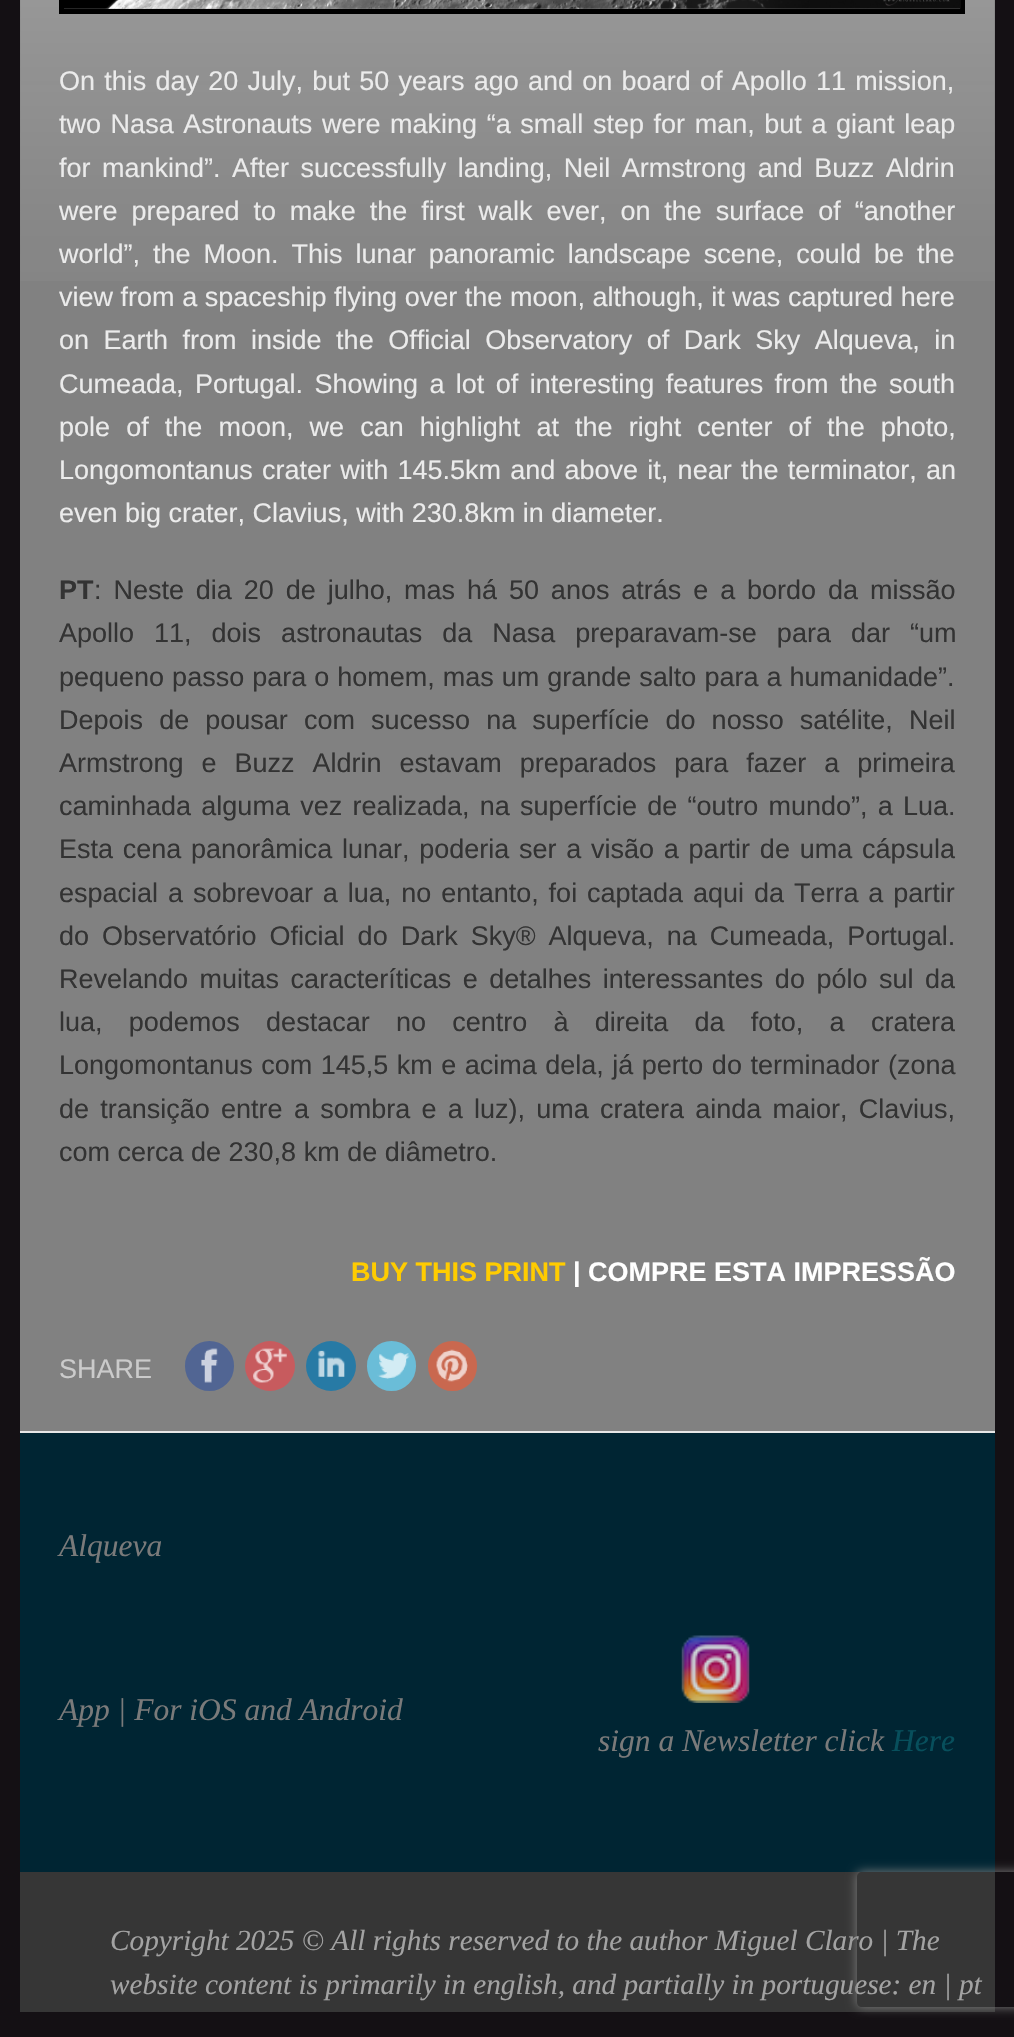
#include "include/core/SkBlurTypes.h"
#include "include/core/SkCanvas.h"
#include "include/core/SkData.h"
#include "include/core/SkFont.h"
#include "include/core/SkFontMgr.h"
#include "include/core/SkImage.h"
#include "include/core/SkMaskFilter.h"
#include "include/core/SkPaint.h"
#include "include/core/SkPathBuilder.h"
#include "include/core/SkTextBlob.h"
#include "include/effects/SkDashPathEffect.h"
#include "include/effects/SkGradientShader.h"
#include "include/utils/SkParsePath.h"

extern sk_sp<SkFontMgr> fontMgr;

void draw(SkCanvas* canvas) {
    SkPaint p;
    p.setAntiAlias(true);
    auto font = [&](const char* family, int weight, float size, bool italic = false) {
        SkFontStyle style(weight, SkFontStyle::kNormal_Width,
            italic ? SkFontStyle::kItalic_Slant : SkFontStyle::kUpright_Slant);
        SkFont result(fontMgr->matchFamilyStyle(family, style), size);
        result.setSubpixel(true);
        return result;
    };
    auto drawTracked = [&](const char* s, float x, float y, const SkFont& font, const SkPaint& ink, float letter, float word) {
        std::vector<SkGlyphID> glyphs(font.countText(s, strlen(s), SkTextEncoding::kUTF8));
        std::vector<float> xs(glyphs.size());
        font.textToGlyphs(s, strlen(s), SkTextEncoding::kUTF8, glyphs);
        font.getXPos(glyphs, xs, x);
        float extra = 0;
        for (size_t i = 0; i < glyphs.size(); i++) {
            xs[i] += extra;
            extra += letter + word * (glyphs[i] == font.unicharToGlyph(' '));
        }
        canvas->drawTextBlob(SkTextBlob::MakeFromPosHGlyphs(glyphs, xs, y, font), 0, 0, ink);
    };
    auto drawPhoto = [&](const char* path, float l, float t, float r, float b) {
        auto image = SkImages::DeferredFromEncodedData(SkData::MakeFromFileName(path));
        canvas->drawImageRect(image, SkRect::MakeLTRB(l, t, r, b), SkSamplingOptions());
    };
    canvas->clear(0xFF141014);
    p.setColor(0xFF818181);
    canvas->drawRect(SkRect::MakeLTRB(20, 0, 995, 1431), p);
    drawPhoto("media/1.png", 20, 0, 995, 281);
    p.setStyle(SkPaint::kStroke_Style);
    p.setStrokeWidth(5);
    p.setColor(0xFF000000);
    canvas->drawRect(SkRect::MakeLTRB(61.5f, -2.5f, 962.5f, 11.5f), p);
    drawPhoto("media/2.png", 64, 0, 961, 9);
    auto font1 = font("Liberation Sans", 400, 27);
    p.setStyle(SkPaint::kFill_Style);
    p.setColor(0xFFEBEBEB);
    drawTracked("On this day 20 July, but 50 years ago and on board of Apollo 11 mission,", 59, 90, font1, p, 0, 1.75f);
    drawTracked("two Nasa Astronauts were making “a small step for man, but a giant leap", 59, 133, font1, p, 0, 2.1f);
    drawTracked("for mankind”. After successfully landing, Neil Armstrong and Buzz Aldrin", 59, 177, font1, p, 0, 4);
    drawTracked("were prepared to make the first walk ever, on the surface of “another", 59, 220, font1, p, 0, 6.4f);
    drawTracked("world”, the Moon. This lunar panoramic landscape scene, could be the", 59, 263, font1, p, 0, 5.5f);
    drawTracked("view from a spaceship flying over the moon, although, it was captured here", 59, 306, font1, p, 0, 0.1f);
    drawTracked("on Earth from inside the Official Observatory of Dark Sky Alqueva, in", 59, 349, font1, p, 0, 7);
    drawTracked("Cumeada, Portugal. Showing a lot of interesting features from the south", 59, 393, font1, p, 0, 3.9f);
    drawTracked("pole of the moon, we can highlight at the right center of the photo,", 59, 436, font1, p, 0, 8.6f);
    drawTracked("Longomontanus crater with 145.5km and above it, near the terminator, an", 59, 479, font1, p, 0, 1.75f);
    canvas->drawString("even big crater, Clavius, with 230.8km in diameter.", 59, 522, font1, p);
    auto font2 = font("Liberation Sans", 700, 27);
    p.setColor(0xFF333333);
    canvas->drawString("PT", 59, 599, font2, p);
    drawTracked(": Neste dia 20 de julho, mas há 50 anos atrás e a bordo da missão", 94, 599, font1, p, 0, 4.4f);
    drawTracked("Apollo 11, dois astronautas da Nasa preparavam-se para dar “um", 59, 642, font1, p, 0, 12.5f);
    drawTracked("pequeno passo para o homem, mas um grande salto para a humanidade”.", 59, 686, font1, p, 0, 0.5f);
    drawTracked("Depois de pousar com sucesso na superfície do nosso satélite, Neil", 59, 729, font1, p, 0, 8.6f);
    drawTracked("Armstrong e Buzz Aldrin estavam preparados para fazer a primeira", 59, 772, font1, p, 0, 10.5f);
    drawTracked("caminhada alguma vez realizada, na superfície de “outro mundo”, a Lua.", 59, 815, font1, p, 0, 2.75f);
    drawTracked("Esta cena panorâmica lunar, poderia ser a visão a partir de uma cápsula", 59, 858, font1, p, 0, 2.25f);
    drawTracked("espacial a sobrevoar a lua, no entanto, foi captada aqui da Terra a partir", 59, 902, font1, p, 0, 2.4f);
    drawTracked("do Observatório Oficial do Dark Sky® Alqueva, na Cumeada, Portugal.", 59, 945, font1, p, 0, 5.5f);
    drawTracked("Revelando muitas caracteríticas e detalhes interessantes do pólo sul da", 59, 988, font1, p, 0, 4);
    drawTracked("lua, podemos destacar no centro à direita da foto, a cratera", 59, 1031, font1, p, 0, 18.75f);
    drawTracked("Longomontanus com 145,5 km e acima dela, já perto do terminador (zona", 59, 1074, font1, p, 0, 1);
    drawTracked("de transição entre a sombra e a luz), uma cratera ainda maior, Clavius,", 59, 1118, font1, p, 0, 3.75f);
    canvas->drawString("com cerca de 230,8 km de diâmetro.", 59, 1161, font1, p);
    p.setColor(0xFFFFCC00);
    canvas->drawString("BUY THIS PRINT", 351, 1281, font2, p);
    p.setColor(0xFFFFFFFF);
    canvas->drawString("| COMPRE ESTA IMPRESSÃO", 573, 1281, font2, p);
    p.setColor(0xFFCBCBCB);
    canvas->drawString("SHARE", 59, 1378, font1, p);
    p.setColor(0xFF516593);
    canvas->drawRoundRect(SkRect::MakeLTRB(185, 1341, 234, 1391), 24.5f, 24.5f, p);
    drawPhoto("media/3.png", 201, 1348, 218, 1383);
    p.setColor(0xFFC75B5E);
    canvas->drawCircle(270, 1366, 25, p);
    drawPhoto("media/4.png", 253, 1348, 287, 1383);
    p.setColor(0xFF277AA5);
    canvas->drawCircle(331, 1366, 25, p);
    drawPhoto("media/5.png", 317, 1350, 345, 1377);
    p.setColor(0xFF6ABDD8);
    canvas->drawRoundRect(SkRect::MakeLTRB(367, 1341, 416, 1391), 24.5f, 24.5f, p);
    drawPhoto("media/6.png", 377, 1352, 410, 1379);
    p.setColor(0xFFC9684F);
    canvas->drawRoundRect(SkRect::MakeLTRB(428, 1341, 477, 1391), 24.5f, 24.5f, p);
    drawPhoto("media/7.png", 436, 1349, 468, 1382);
    p.setColor(0xFF002533);
    canvas->drawRect(SkRect::MakeLTRB(20, 1433, 995, 1872), p);
    p.setColor(0xFFE6E6E6);
    canvas->drawRect(SkRect::MakeLTRB(20, 1431, 995, 1433), p);
    auto font3 = font("Liberation Serif", 400, 31.5f, true);
    p.setColor(0xFF7A7A7A);
    canvas->drawString("Alqueva", 59, 1556, font3, p);
    canvas->drawString("App | For iOS and Android", 59, 1720, font3, p);
    drawPhoto("media/8.png", 681, 1635, 750, 1703);
    canvas->drawString("sign a Newsletter click", 598, 1751, font3, p);
    p.setColor(0xFF074F5C);
    canvas->drawString("Here", 892, 1751, font3, p);
    p.setColor(0xFF363636);
    canvas->drawRect(SkRect::MakeLTRB(20, 1872, 995, 2012), p);
    auto font4 = font("Liberation Serif", 400, 29.25f, true);
    p.setColor(0xFFA3A3A3);
    canvas->drawString("Copyright 2025 © All rights reserved to the author Miguel Claro | The", 110, 1950, font4, p);
    canvas->drawString("website content is primarily in english, and partially in portuguese: en | pt", 110, 1994, font4, p);
    canvas->save();
    canvas->clipPath(SkPathBuilder(SkPathFillType::kEvenOdd).moveTo(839, 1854).lineTo(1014, 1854).lineTo(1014, 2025).lineTo(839, 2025).close().moveTo(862, 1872).lineTo(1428, 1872).cubicTo(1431, 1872, 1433, 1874, 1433, 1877).lineTo(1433, 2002).cubicTo(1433, 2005, 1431, 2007, 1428, 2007).lineTo(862, 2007).cubicTo(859, 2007, 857, 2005, 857, 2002).lineTo(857, 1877).cubicTo(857, 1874, 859, 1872, 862, 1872).close().detach(), true);
    p.setColor(0xFF808080);
    p.setMaskFilter(SkMaskFilter::MakeBlur(kNormal_SkBlurStyle, 5.5f));
    canvas->drawRoundRect(SkRect::MakeLTRB(857, 1872, 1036, 2007), 5, 5, p);
    p.setMaskFilter(nullptr);
    canvas->restore();
}
